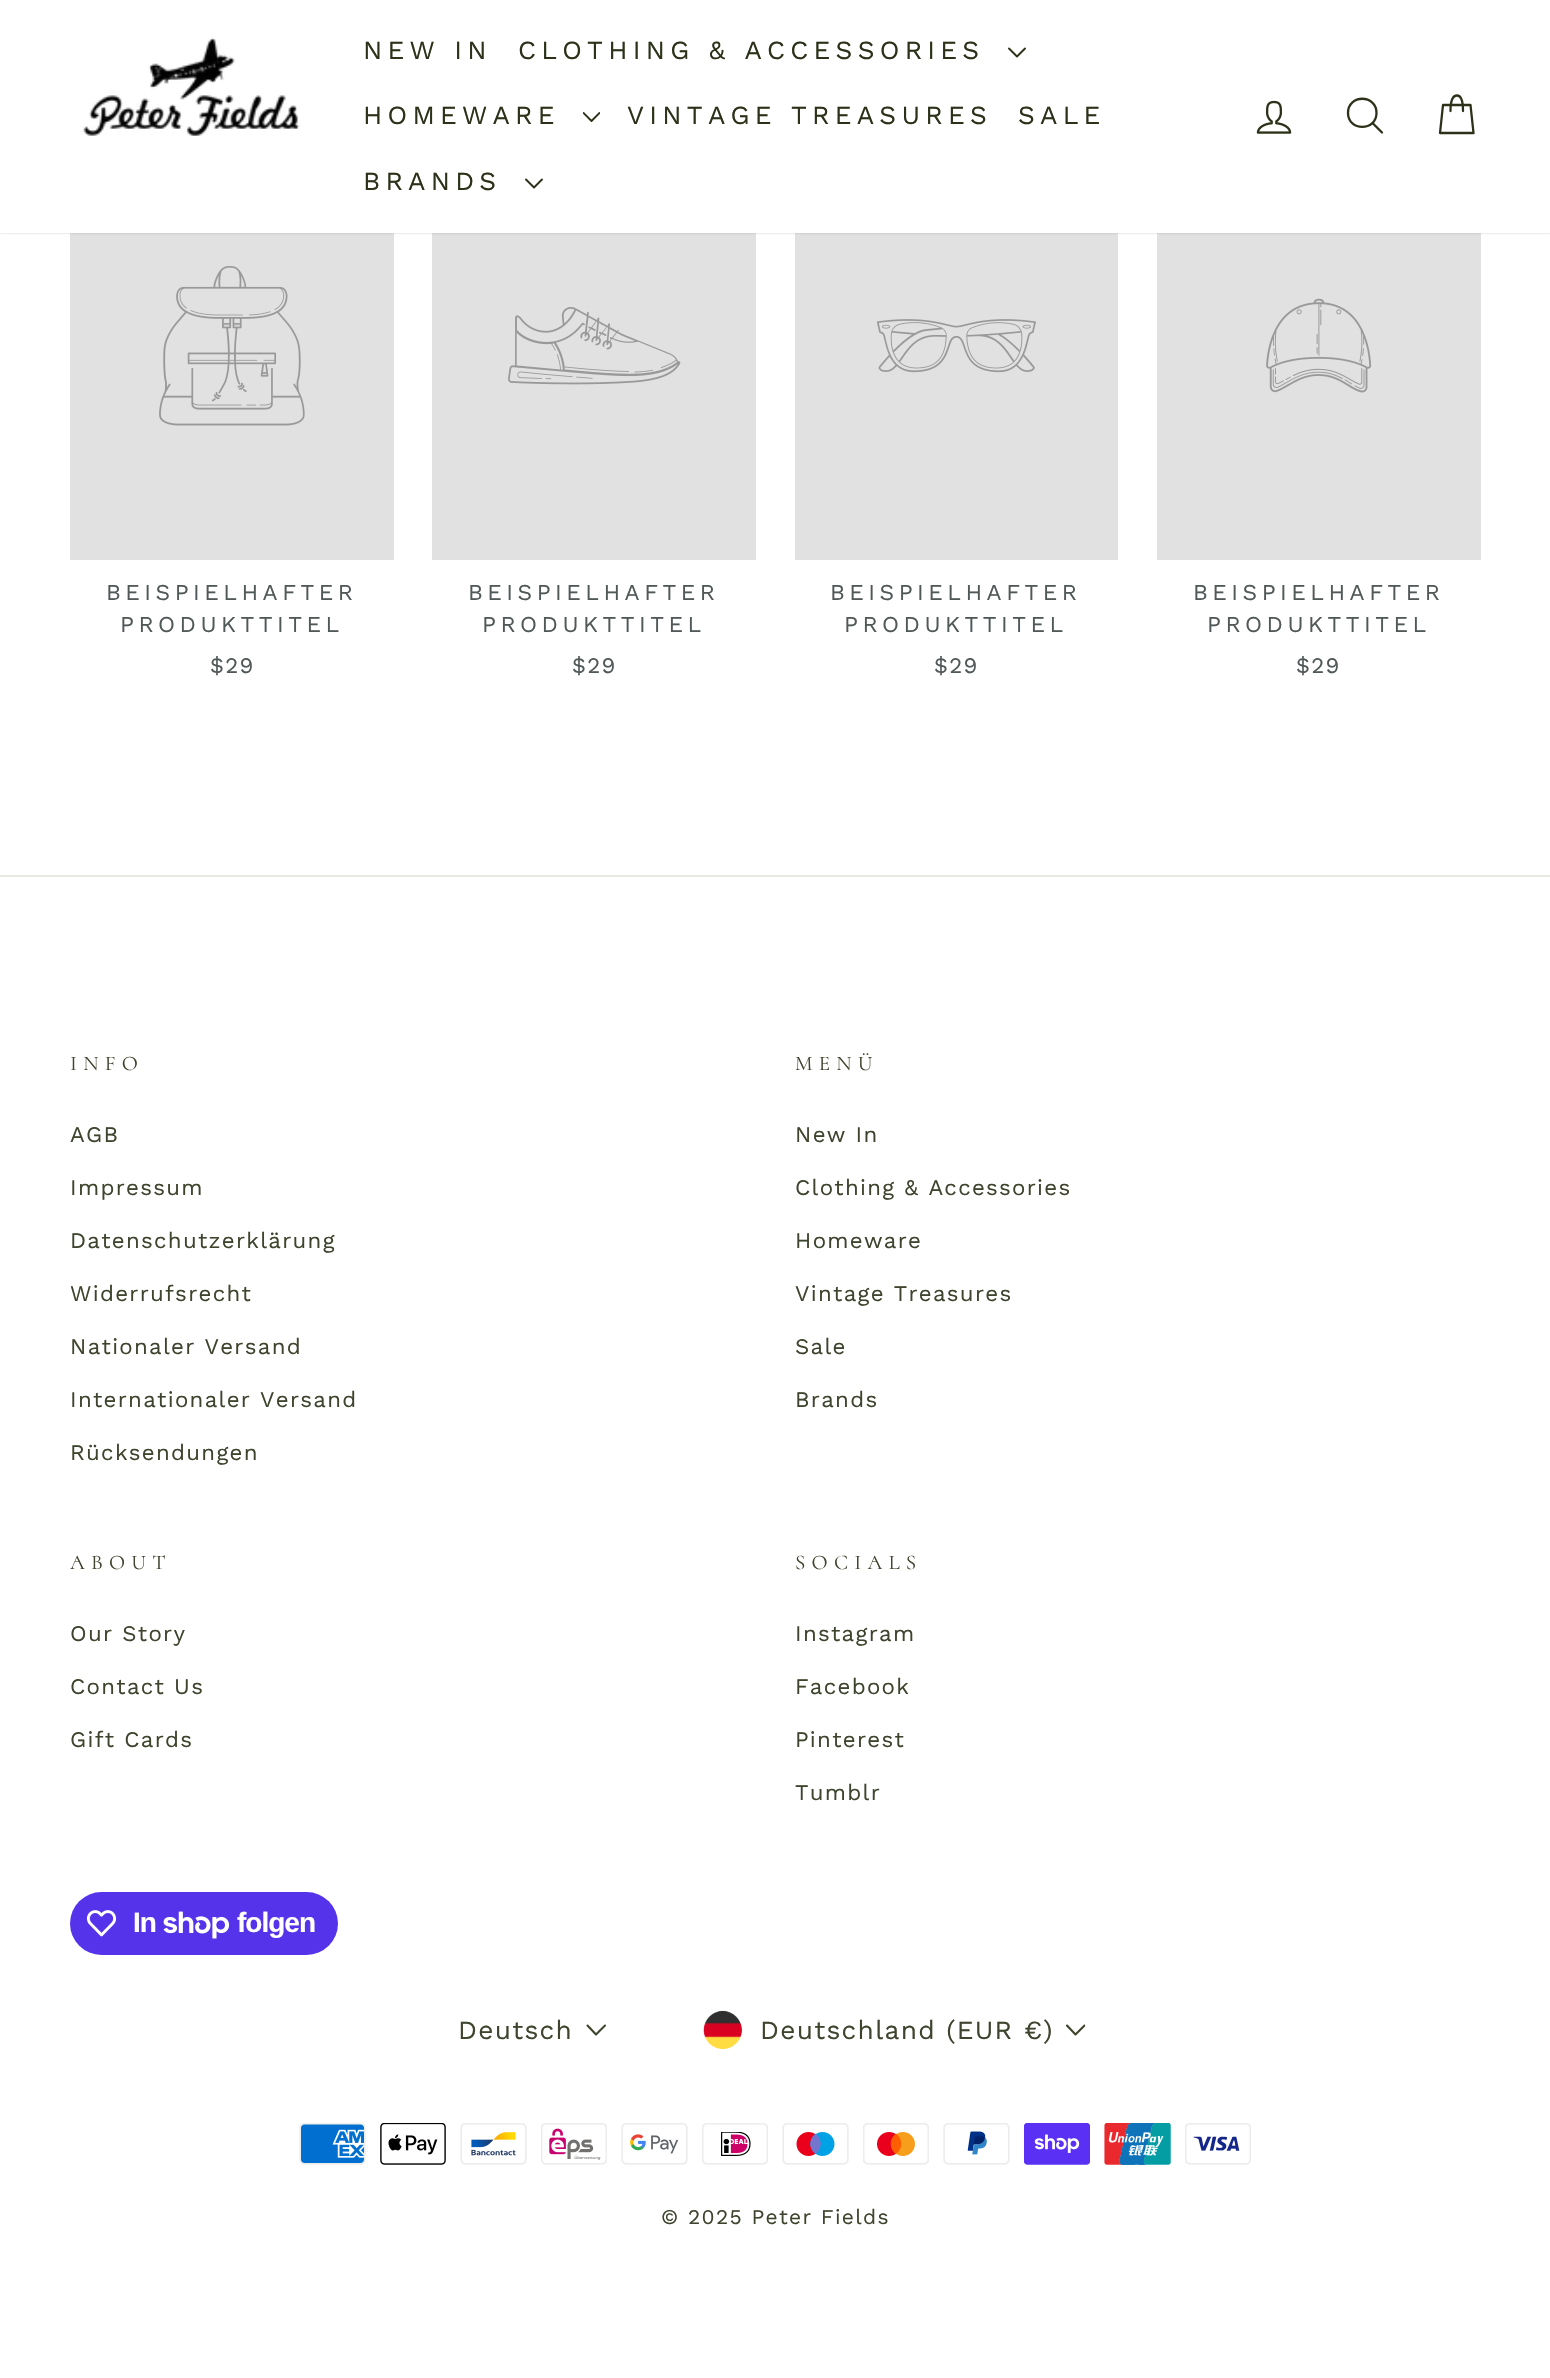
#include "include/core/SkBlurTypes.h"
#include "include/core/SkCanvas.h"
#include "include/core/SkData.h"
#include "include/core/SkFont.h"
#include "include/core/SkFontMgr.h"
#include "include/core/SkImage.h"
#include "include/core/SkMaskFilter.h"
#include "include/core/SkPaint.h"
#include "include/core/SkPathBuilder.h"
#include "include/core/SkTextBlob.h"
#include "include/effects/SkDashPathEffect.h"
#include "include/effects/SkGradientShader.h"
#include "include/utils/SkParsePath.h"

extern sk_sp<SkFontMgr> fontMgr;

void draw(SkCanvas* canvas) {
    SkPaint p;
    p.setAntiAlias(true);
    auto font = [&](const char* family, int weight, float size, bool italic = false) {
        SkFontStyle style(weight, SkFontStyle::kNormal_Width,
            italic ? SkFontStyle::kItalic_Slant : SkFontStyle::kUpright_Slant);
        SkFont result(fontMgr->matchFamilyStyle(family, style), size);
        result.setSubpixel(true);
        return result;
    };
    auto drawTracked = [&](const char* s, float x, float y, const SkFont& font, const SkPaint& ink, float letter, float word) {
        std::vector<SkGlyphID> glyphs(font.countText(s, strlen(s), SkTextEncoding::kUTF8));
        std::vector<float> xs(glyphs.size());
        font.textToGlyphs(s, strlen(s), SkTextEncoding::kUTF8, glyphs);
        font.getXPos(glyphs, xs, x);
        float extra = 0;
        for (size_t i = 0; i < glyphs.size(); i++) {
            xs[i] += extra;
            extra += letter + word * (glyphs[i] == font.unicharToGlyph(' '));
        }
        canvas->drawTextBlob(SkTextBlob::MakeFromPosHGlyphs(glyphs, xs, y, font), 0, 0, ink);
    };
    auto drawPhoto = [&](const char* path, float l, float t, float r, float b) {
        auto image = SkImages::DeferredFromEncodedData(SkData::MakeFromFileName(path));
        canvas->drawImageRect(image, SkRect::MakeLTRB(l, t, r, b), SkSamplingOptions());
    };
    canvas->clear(0xFFFFFFFF);
    {
        const struct { float l, t, r, b; SkColor color; } items[] = {
            {70, 233, 394, 560, 0xFFE1E1E1},
            {432, 233, 756, 560, 0xFFE1E1E1},
            {795, 233, 1118, 560, 0xFFE1E1E1},
            {1157, 233, 1481, 560, 0xFFE1E1E1},
        };
        for (auto [l, t, r, b, color] : items) {
            p.setColor(color);
            canvas->drawRect(SkRect::MakeLTRB(l, t, r, b), p);
        }
    }
    p.setColor(0x33000000);
    p.setMaskFilter(SkMaskFilter::MakeBlur(kNormal_SkBlurStyle, 1));
    canvas->drawRect(SkRect::MakeLTRB(0, 0, 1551, 233), p);
    p.setMaskFilter(nullptr);
    p.setColor(0xFFFFFFFF);
    canvas->drawRect(SkRect::MakeLTRB(0, 0, 1550, 233), p);
    drawPhoto("media/1.png", 83, 37, 300, 136);
    auto font1 = font("Work Sans", 400, 26.25f);
    p.setColor(0xFF2B3219);
    drawTracked("NEW IN", 363, 59, font1, p, 5.25f, 0);
    drawTracked("CLOTHING & ACCESSORIES", 518, 59, font1, p, 5.25f, 0);
    p.setStyle(SkPaint::kStroke_Style);
    p.setStrokeWidth(1.9f);
    p.setStrokeCap(SkPaint::kRound_Cap);
    p.setStrokeJoin(SkPaint::kRound_Join);
    canvas->drawPath(SkPathBuilder().moveTo(1009, 48.5f).lineTo(1017, 56.5f).lineTo(1025, 48.5f).detach(), p);
    p.setStyle(SkPaint::kFill_Style);
    drawTracked("HOMEWARE", 363, 124, font1, p, 5.25f, 0);
    canvas->save();
    canvas->clipRect(SkRect::MakeLTRB(583, 109, 600, 126));
    p.setStyle(SkPaint::kStroke_Style);
    canvas->drawPath(SkPathBuilder().moveTo(583.5f, 113).lineTo(591.5f, 121).lineTo(599.5f, 113).detach(), p);
    canvas->restore();
    p.setStyle(SkPaint::kFill_Style);
    {
        const struct { const char* s; float x, y; } items[] = {
            {"VINTAGE TREASURES", 627, 124},
            {"SALE", 1018, 124},
            {"BRANDS", 363, 190},
        };
        for (auto [s, x, y] : items) {
            drawTracked(s, x, y, font1, p, 5.25f, 0);
        }
    }
    p.setStyle(SkPaint::kStroke_Style);
    canvas->drawPath(SkPathBuilder().moveTo(526, 179.5f).lineTo(534, 187.5f).lineTo(542, 179.5f).detach(), p);
    drawPhoto("media/2.png", 1256, 100, 1292, 134);
    p.setStrokeWidth(2.3f);
    canvas->drawPath(SkPathBuilder().moveTo(1376.5f, 113).cubicTo(1376.5f, 131.5f, 1348, 131.5f, 1348, 113).cubicTo(1348, 94, 1376.5f, 94, 1376.5f, 113).close().moveTo(1382, 132.5f).lineTo(1372.5f, 123).detach(), p);
    canvas->drawPath(SkPathBuilder().moveTo(1450.5f, 111).cubicTo(1450.5f, 99, 1453.5f, 95.5f, 1457, 95.5f).cubicTo(1460, 95.5f, 1463, 99, 1463, 111).moveTo(1443, 105).lineTo(1470.5f, 105).lineTo(1473.5f, 133).lineTo(1440, 133).close().detach(), p);
    drawPhoto("media/3.png", 159, 266, 305, 426);
    auto font2 = font("Work Sans", 400, 22.75f);
    p.setStyle(SkPaint::kFill_Style);
    p.setColor(0xFF515858);
    drawTracked("BEISPIELHAFTER", 106, 600, font2, p, 4.5f, 0);
    drawTracked("PRODUKTTITEL", 120, 632, font2, p, 4.5f, 0);
    auto font3 = font("Work Sans", 400, 22.25f);
    drawTracked("$29", 210, 673, font3, p, 1.3f, 0);
    drawPhoto("media/4.png", 508, 307, 681, 385);
    drawTracked("BEISPIELHAFTER", 468, 600, font2, p, 4.5f, 0);
    drawTracked("PRODUKTTITEL", 482, 632, font2, p, 4.5f, 0);
    drawTracked("$29", 572, 673, font3, p, 1.3f, 0);
    drawPhoto("media/5.png", 876, 319, 1036, 373);
    drawTracked("BEISPIELHAFTER", 830, 600, font2, p, 4.5f, 0);
    drawTracked("PRODUKTTITEL", 844, 632, font2, p, 4.5f, 0);
    drawTracked("$29", 934, 673, font3, p, 1.3f, 0);
    drawPhoto("media/6.png", 1266, 298, 1372, 393);
    drawTracked("BEISPIELHAFTER", 1193, 600, font2, p, 4.5f, 0);
    drawTracked("PRODUKTTITEL", 1207, 632, font2, p, 4.5f, 0);
    drawTracked("$29", 1296, 673, font3, p, 1.3f, 0);
    p.setColor(0xFFE8E8E1);
    canvas->drawRect(SkRect::MakeLTRB(0, 875, 1550, 877), p);
    auto font4 = font("Cormorant", 400, 21);
    p.setColor(0xFF3E452E);
    drawTracked("INFO", 70, 1070, font4, p, 6.25f, 0);
    {
        const struct { const char* s; float x, y; } items[] = {
            {"AGB", 70, 1142},
            {"Impressum", 70, 1195},
            {"Datenschutzerklärung", 70, 1248},
            {"Widerrufsrecht", 70, 1301},
            {"Nationaler Versand", 70, 1354},
            {"Internationaler Versand", 70, 1407},
            {"Rücksendungen", 70, 1460},
        };
        for (auto [s, x, y] : items) {
            drawTracked(s, x, y, font3, p, 1.3f, 0);
        }
    }
    drawTracked("MENÜ", 795, 1070, font4, p, 6.25f, 0);
    {
        const struct { const char* s; float x, y; } items[] = {
            {"New In", 795, 1142},
            {"Clothing & Accessories", 795, 1195},
            {"Homeware", 795, 1248},
            {"Vintage Treasures", 795, 1301},
            {"Sale", 795, 1354},
            {"Brands", 795, 1407},
        };
        for (auto [s, x, y] : items) {
            drawTracked(s, x, y, font3, p, 1.3f, 0);
        }
    }
    drawTracked("ABOUT", 70, 1569, font4, p, 6.25f, 0);
    {
        const struct { const char* s; float x, y; } items[] = {
            {"Our Story", 70, 1641},
            {"Contact Us", 70, 1694},
            {"Gift Cards", 70, 1747},
        };
        for (auto [s, x, y] : items) {
            drawTracked(s, x, y, font3, p, 1.3f, 0);
        }
    }
    drawTracked("SOCIALS", 795, 1569, font4, p, 6.25f, 0);
    {
        const struct { const char* s; float x, y; } items[] = {
            {"Instagram", 795, 1641},
            {"Facebook", 795, 1694},
            {"Pinterest", 795, 1747},
            {"Tumblr", 795, 1800},
        };
        for (auto [s, x, y] : items) {
            drawTracked(s, x, y, font3, p, 1.3f, 0);
        }
    }
    p.setColor(0xFF5433EB);
    canvas->drawRoundRect(SkRect::MakeLTRB(70, 1892, 338, 1955), 31.5f, 31.5f, p);
    drawPhoto("media/7.png", 86, 1910, 117, 1937);
    auto font5 = font("Liberation Sans", 700, 28);
    p.setColor(0xFFFFFFFF);
    drawTracked("In", 133, 1932, font5, p, -1, 0);
    drawPhoto("media/8.png", 163, 1911, 230, 1939);
    drawTracked("folgen", 237, 1932, font5, p, -1, 0);
    p.setColor(0xFF3E452E);
    drawTracked("Deutsch", 458, 2039, font1, p, 1.3f, 0);
    p.setStyle(SkPaint::kStroke_Style);
    p.setStrokeWidth(2.1f);
    canvas->drawPath(SkPathBuilder().moveTo(587.5f, 2025.5f).lineTo(596, 2034.5f).lineTo(605, 2025.5f).detach(), p);
    drawPhoto("media/9.png", 703, 2010, 742, 2050);
    p.setStyle(SkPaint::kFill_Style);
    drawTracked("Deutschland (EUR €)", 760, 2039, font1, p, 1.3f, 0);
    canvas->save();
    canvas->clipRect(SkRect::MakeLTRB(1066, 2021, 1085, 2041));
    p.setStyle(SkPaint::kStroke_Style);
    canvas->drawPath(SkPathBuilder().moveTo(1067, 2025.5f).lineTo(1075.5f, 2034.5f).lineTo(1084.5f, 2025.5f).detach(), p);
    canvas->restore();
    drawPhoto("media/10.png", 299, 2123, 366, 2165);
    drawPhoto("media/11.png", 380, 2123, 446, 2165);
    drawPhoto("media/12.png", 460, 2123, 527, 2165);
    drawPhoto("media/13.png", 541, 2123, 607, 2165);
    drawPhoto("media/14.png", 621, 2123, 688, 2165);
    drawPhoto("media/15.png", 702, 2123, 768, 2165);
    drawPhoto("media/16.png", 782, 2123, 849, 2165);
    drawPhoto("media/17.png", 863, 2123, 929, 2165);
    drawPhoto("media/18.png", 943, 2123, 1010, 2165);
    drawPhoto("media/19.png", 1024, 2123, 1090, 2165);
    drawPhoto("media/20.png", 1104, 2123, 1171, 2165);
    drawPhoto("media/21.png", 1185, 2123, 1251, 2165);
    auto font6 = font("Work Sans", 400, 21);
    p.setStyle(SkPaint::kFill_Style);
    drawTracked("© 2025 Peter Fields", 661, 2224, font6, p, 1.3f, 0);
}
